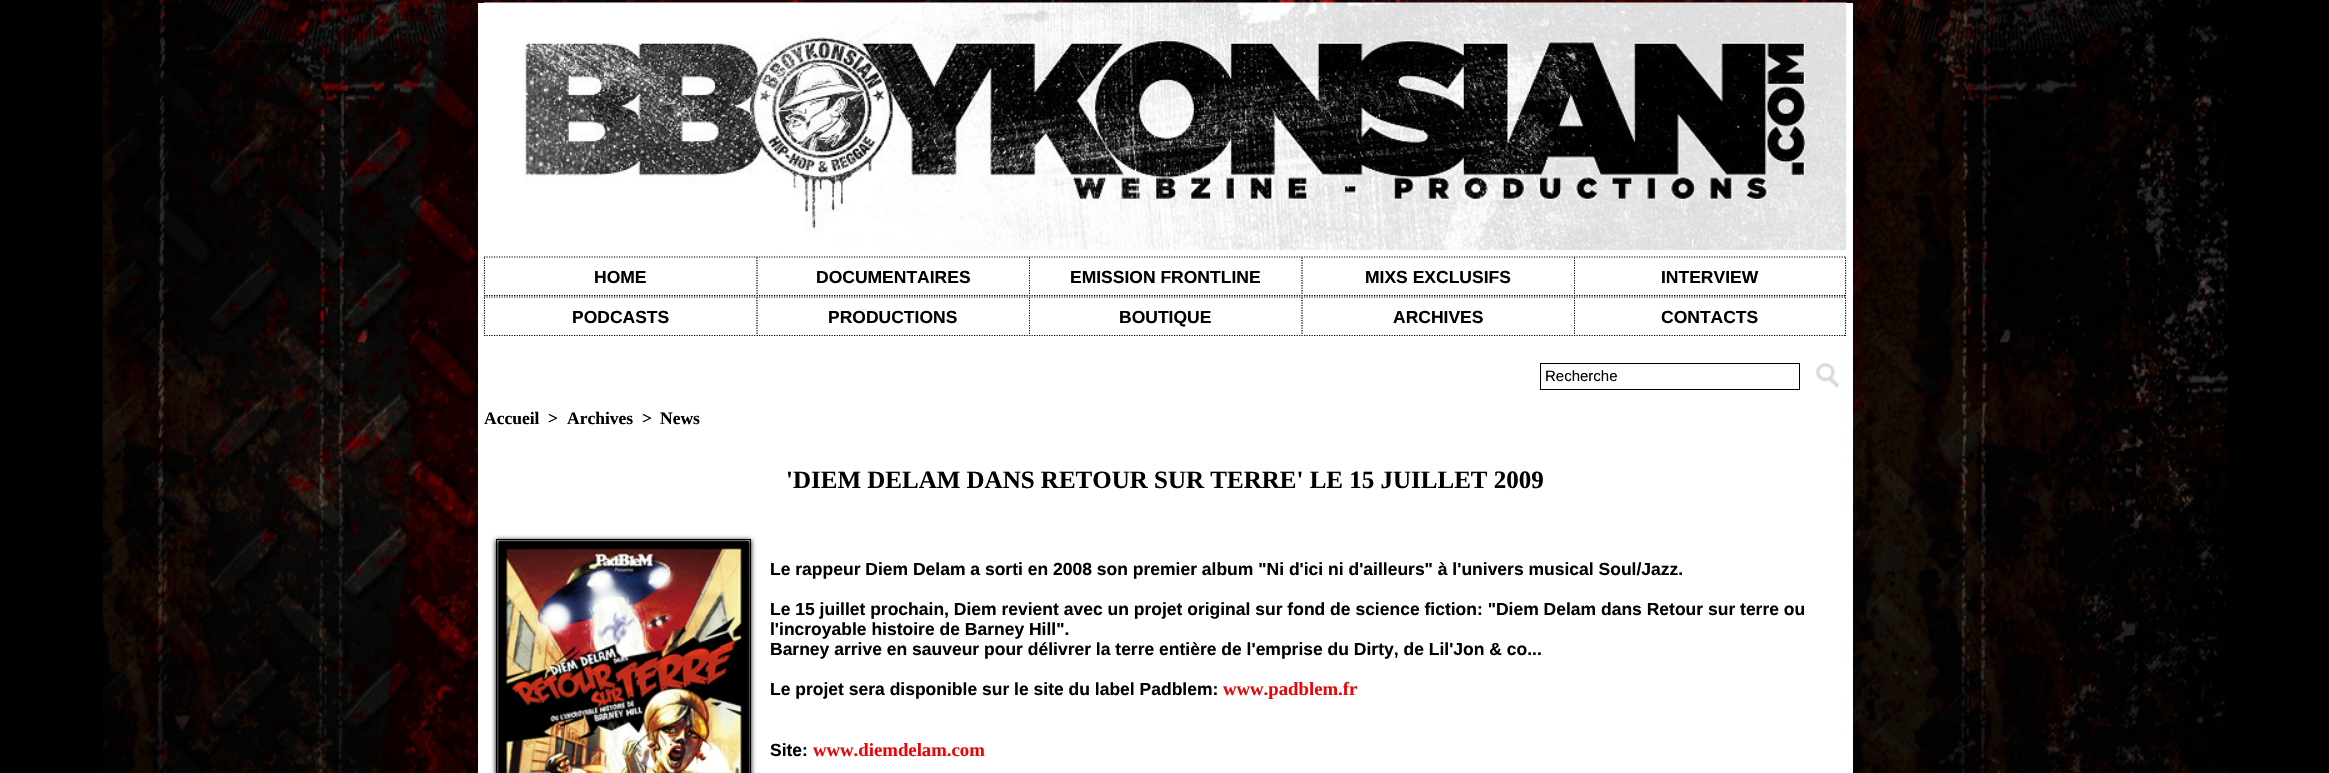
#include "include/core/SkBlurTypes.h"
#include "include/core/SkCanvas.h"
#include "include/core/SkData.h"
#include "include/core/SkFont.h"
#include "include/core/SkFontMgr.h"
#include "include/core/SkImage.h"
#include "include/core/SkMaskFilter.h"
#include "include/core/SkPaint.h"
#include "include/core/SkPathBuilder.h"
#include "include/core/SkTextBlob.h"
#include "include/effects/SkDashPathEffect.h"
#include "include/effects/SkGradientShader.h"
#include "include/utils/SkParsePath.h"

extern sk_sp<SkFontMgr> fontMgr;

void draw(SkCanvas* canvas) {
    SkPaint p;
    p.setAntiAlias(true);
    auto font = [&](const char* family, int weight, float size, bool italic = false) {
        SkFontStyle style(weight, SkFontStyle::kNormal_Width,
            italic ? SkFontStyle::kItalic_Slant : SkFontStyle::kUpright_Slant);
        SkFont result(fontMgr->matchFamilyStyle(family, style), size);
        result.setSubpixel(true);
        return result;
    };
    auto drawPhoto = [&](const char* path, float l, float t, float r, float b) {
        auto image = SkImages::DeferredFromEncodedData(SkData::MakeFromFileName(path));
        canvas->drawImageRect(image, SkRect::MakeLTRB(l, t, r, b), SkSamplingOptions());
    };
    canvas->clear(0xFF000000);
    drawPhoto("media/1.png", 102, 0, 2228, 773);
    p.setColor(0xFFFFFFFF);
    canvas->drawRect(SkRect::MakeLTRB(478, 3, 1853, 773), p);
    drawPhoto("media/2.png", 483, 2, 1847, 250);
    p.setStyle(SkPaint::kStroke_Style);
    p.setStrokeWidth(1.2f);
    p.setColor(0xFF000000);
    p.setPathEffect(SkDashPathEffect::Make({{1.25f, 1.25f}}, 0));
    canvas->drawPath(SkPathBuilder().moveTo(484, 257).lineTo(1846, 257).detach(), p);
    p.setPathEffect(nullptr);
    p.setPathEffect(SkDashPathEffect::Make({{1.25f, 1.25f}}, 0));
    canvas->drawPath(SkPathBuilder().moveTo(1845.5f, 257.5f).lineTo(1845.5f, 296).detach(), p);
    p.setPathEffect(nullptr);
    p.setPathEffect(SkDashPathEffect::Make({{1.25f, 1.25f}}, 0));
    canvas->drawPath(SkPathBuilder().moveTo(484, 297).lineTo(1846, 297).detach(), p);
    p.setPathEffect(nullptr);
    p.setPathEffect(SkDashPathEffect::Make({{1.25f, 1.25f}}, 0));
    canvas->drawPath(SkPathBuilder().moveTo(484, 295.5f).lineTo(1846, 295.5f).detach(), p);
    p.setPathEffect(nullptr);
    p.setPathEffect(SkDashPathEffect::Make({{1.25f, 1.25f}}, 0));
    canvas->drawPath(SkPathBuilder().moveTo(484.5f, 257.5f).lineTo(484.5f, 296).detach(), p);
    p.setPathEffect(nullptr);
    p.setPathEffect(SkDashPathEffect::Make({{1.25f, 1.25f}}, 0));
    canvas->drawPath(SkPathBuilder().moveTo(757, 257.5f).lineTo(757, 295).detach(), p);
    p.setPathEffect(nullptr);
    p.setStyle(SkPaint::kFill_Style);
    p.setColor(0xFFFFFFFF);
    canvas->drawRect(SkRect::MakeLTRB(485, 258, 756, 295), p);
    auto font1 = font("Liberation Sans", 700, 17.5f);
    p.setColor(0xFF000000);
    canvas->drawString("HOME", 594, 283, font1, p);
    p.setStyle(SkPaint::kStroke_Style);
    p.setPathEffect(SkDashPathEffect::Make({{1.25f, 1.25f}}, 0));
    canvas->drawPath(SkPathBuilder().moveTo(1029.5f, 257.5f).lineTo(1029.5f, 295).detach(), p);
    p.setPathEffect(nullptr);
    p.setStyle(SkPaint::kFill_Style);
    p.setColor(0xFFFFFFFF);
    canvas->drawRect(SkRect::MakeLTRB(759, 258, 1029, 295), p);
    p.setColor(0xFF000000);
    canvas->drawString("DOCUMENTAIRES", 816, 283, font1, p);
    p.setStyle(SkPaint::kStroke_Style);
    p.setPathEffect(SkDashPathEffect::Make({{1.25f, 1.25f}}, 0));
    canvas->drawPath(SkPathBuilder().moveTo(1302, 257.5f).lineTo(1302, 295).detach(), p);
    p.setPathEffect(nullptr);
    p.setStyle(SkPaint::kFill_Style);
    p.setColor(0xFFFFFFFF);
    canvas->drawRect(SkRect::MakeLTRB(1030, 258, 1301, 295), p);
    p.setColor(0xFF000000);
    canvas->drawString("EMISSION FRONTLINE", 1070, 283, font1, p);
    p.setStyle(SkPaint::kStroke_Style);
    p.setPathEffect(SkDashPathEffect::Make({{1.25f, 1.25f}}, 0));
    canvas->drawPath(SkPathBuilder().moveTo(1574.5f, 257.5f).lineTo(1574.5f, 295).detach(), p);
    p.setPathEffect(nullptr);
    p.setStyle(SkPaint::kFill_Style);
    p.setColor(0xFFFFFFFF);
    canvas->drawRect(SkRect::MakeLTRB(1304, 258, 1574, 295), p);
    p.setColor(0xFF000000);
    canvas->drawString("MIXS EXCLUSIFS", 1365, 283, font1, p);
    p.setColor(0xFFFFFFFF);
    canvas->drawRect(SkRect::MakeLTRB(1575, 258, 1845, 295), p);
    p.setColor(0xFF000000);
    canvas->drawString("INTERVIEW", 1661, 283, font1, p);
    p.setStyle(SkPaint::kStroke_Style);
    p.setPathEffect(SkDashPathEffect::Make({{1.25f, 1.25f}}, 0));
    canvas->drawPath(SkPathBuilder().moveTo(1845.5f, 297.5f).lineTo(1845.5f, 336).detach(), p);
    p.setPathEffect(nullptr);
    p.setPathEffect(SkDashPathEffect::Make({{1.25f, 1.25f}}, 0));
    canvas->drawPath(SkPathBuilder().moveTo(484, 335.5f).lineTo(1846, 335.5f).detach(), p);
    p.setPathEffect(nullptr);
    p.setPathEffect(SkDashPathEffect::Make({{1.25f, 1.25f}}, 0));
    canvas->drawPath(SkPathBuilder().moveTo(484.5f, 297.5f).lineTo(484.5f, 336).detach(), p);
    p.setPathEffect(nullptr);
    p.setPathEffect(SkDashPathEffect::Make({{1.25f, 1.25f}}, 0));
    canvas->drawPath(SkPathBuilder().moveTo(757, 297.5f).lineTo(757, 335).detach(), p);
    p.setPathEffect(nullptr);
    p.setStyle(SkPaint::kFill_Style);
    p.setColor(0xFFFFFFFF);
    canvas->drawRect(SkRect::MakeLTRB(485, 298, 756, 335), p);
    p.setColor(0xFF000000);
    canvas->drawString("PODCASTS", 572, 323, font1, p);
    p.setStyle(SkPaint::kStroke_Style);
    p.setPathEffect(SkDashPathEffect::Make({{1.25f, 1.25f}}, 0));
    canvas->drawPath(SkPathBuilder().moveTo(1029.5f, 297.5f).lineTo(1029.5f, 335).detach(), p);
    p.setPathEffect(nullptr);
    p.setStyle(SkPaint::kFill_Style);
    p.setColor(0xFFFFFFFF);
    canvas->drawRect(SkRect::MakeLTRB(759, 298, 1029, 335), p);
    p.setColor(0xFF000000);
    canvas->drawString("PRODUCTIONS", 828, 323, font1, p);
    p.setStyle(SkPaint::kStroke_Style);
    p.setPathEffect(SkDashPathEffect::Make({{1.25f, 1.25f}}, 0));
    canvas->drawPath(SkPathBuilder().moveTo(1302, 297.5f).lineTo(1302, 335).detach(), p);
    p.setPathEffect(nullptr);
    p.setStyle(SkPaint::kFill_Style);
    p.setColor(0xFFFFFFFF);
    canvas->drawRect(SkRect::MakeLTRB(1030, 298, 1301, 335), p);
    p.setColor(0xFF000000);
    canvas->drawString("BOUTIQUE", 1119, 323, font1, p);
    p.setStyle(SkPaint::kStroke_Style);
    p.setPathEffect(SkDashPathEffect::Make({{1.25f, 1.25f}}, 0));
    canvas->drawPath(SkPathBuilder().moveTo(1574.5f, 297.5f).lineTo(1574.5f, 335).detach(), p);
    p.setPathEffect(nullptr);
    p.setStyle(SkPaint::kFill_Style);
    p.setColor(0xFFFFFFFF);
    canvas->drawRect(SkRect::MakeLTRB(1304, 298, 1574, 335), p);
    p.setColor(0xFF000000);
    canvas->drawString("ARCHIVES", 1393, 323, font1, p);
    p.setColor(0xFFFFFFFF);
    canvas->drawRect(SkRect::MakeLTRB(1575, 298, 1845, 335), p);
    p.setColor(0xFF000000);
    canvas->drawString("CONTACTS", 1661, 323, font1, p);
    p.setStyle(SkPaint::kStroke_Style);
    p.setStrokeWidth(1);
    canvas->drawRect(SkRect::MakeLTRB(1540.5f, 363.5f, 1799.5f, 389.5f), p);
    auto font2 = font("Liberation Sans", 400, 15);
    p.setStyle(SkPaint::kFill_Style);
    canvas->drawString("Recherche", 1545, 381, font2, p);
    drawPhoto("media/3.png", 1816, 362, 1839, 388);
    auto font3 = font("Liberation Serif", 700, 17.5f);
    {
        const struct { const char* s; float x, y; } items[] = {
            {"Accueil", 484, 424},
            {">", 548, 424},
            {"Archives", 567, 424},
            {">", 642, 424},
            {"News", 660, 424},
        };
        for (auto [s, x, y] : items) {
            canvas->drawString(s, x, y, font3, p);
        }
    }
    auto font4 = font("Liberation Serif", 700, 25);
    canvas->drawString("'DIEM DELAM DANS RETOUR SUR TERRE' LE 15 JUILLET 2009", 786, 488, font4, p);
    p.setMaskFilter(SkMaskFilter::MakeBlur(kNormal_SkBlurStyle, 2.5f));
    canvas->drawRect(SkRect::MakeLTRB(496, 540, 751, 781), p);
    p.setMaskFilter(nullptr);
    p.setStyle(SkPaint::kStroke_Style);
    canvas->drawRect(SkRect::MakeLTRB(496.5f, 539.5f, 750.5f, 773.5f), p);
    drawPhoto("media/4.png", 498, 541, 749, 773);
    p.setStyle(SkPaint::kFill_Style);
    {
        const struct { const char* s; float x, y; } items[] = {
            {"Le rappeur Diem Delam a sorti en 2008 son premier album \"Ni d'ici ni d'ailleurs\" à l'univers musical Soul/Jazz.", 770, 575},
            {"Le 15 juillet prochain, Diem revient avec un projet original sur fond de science fiction: \"Diem Delam dans Retour sur terre ou", 770, 615},
            {"l'incroyable histoire de Barney Hill\".", 770, 635},
            {"Barney arrive en sauveur pour délivrer la terre entière de l'emprise du Dirty, de Lil'Jon & co...", 770, 655},
            {"Le projet sera disponible sur le site du label Padblem:", 770, 695},
        };
        for (auto [s, x, y] : items) {
            canvas->drawString(s, x, y, font1, p);
        }
    }
    auto font5 = font("Liberation Serif", 700, 18.75f);
    p.setColor(0xFFE80606);
    canvas->drawString("www.padblem.fr", 1223, 695, font5, p);
    p.setColor(0xFF000000);
    canvas->drawString("Site:", 770, 756, font1, p);
    p.setColor(0xFFE80606);
    canvas->drawString("www.diemdelam.com", 813, 756, font5, p);
}
